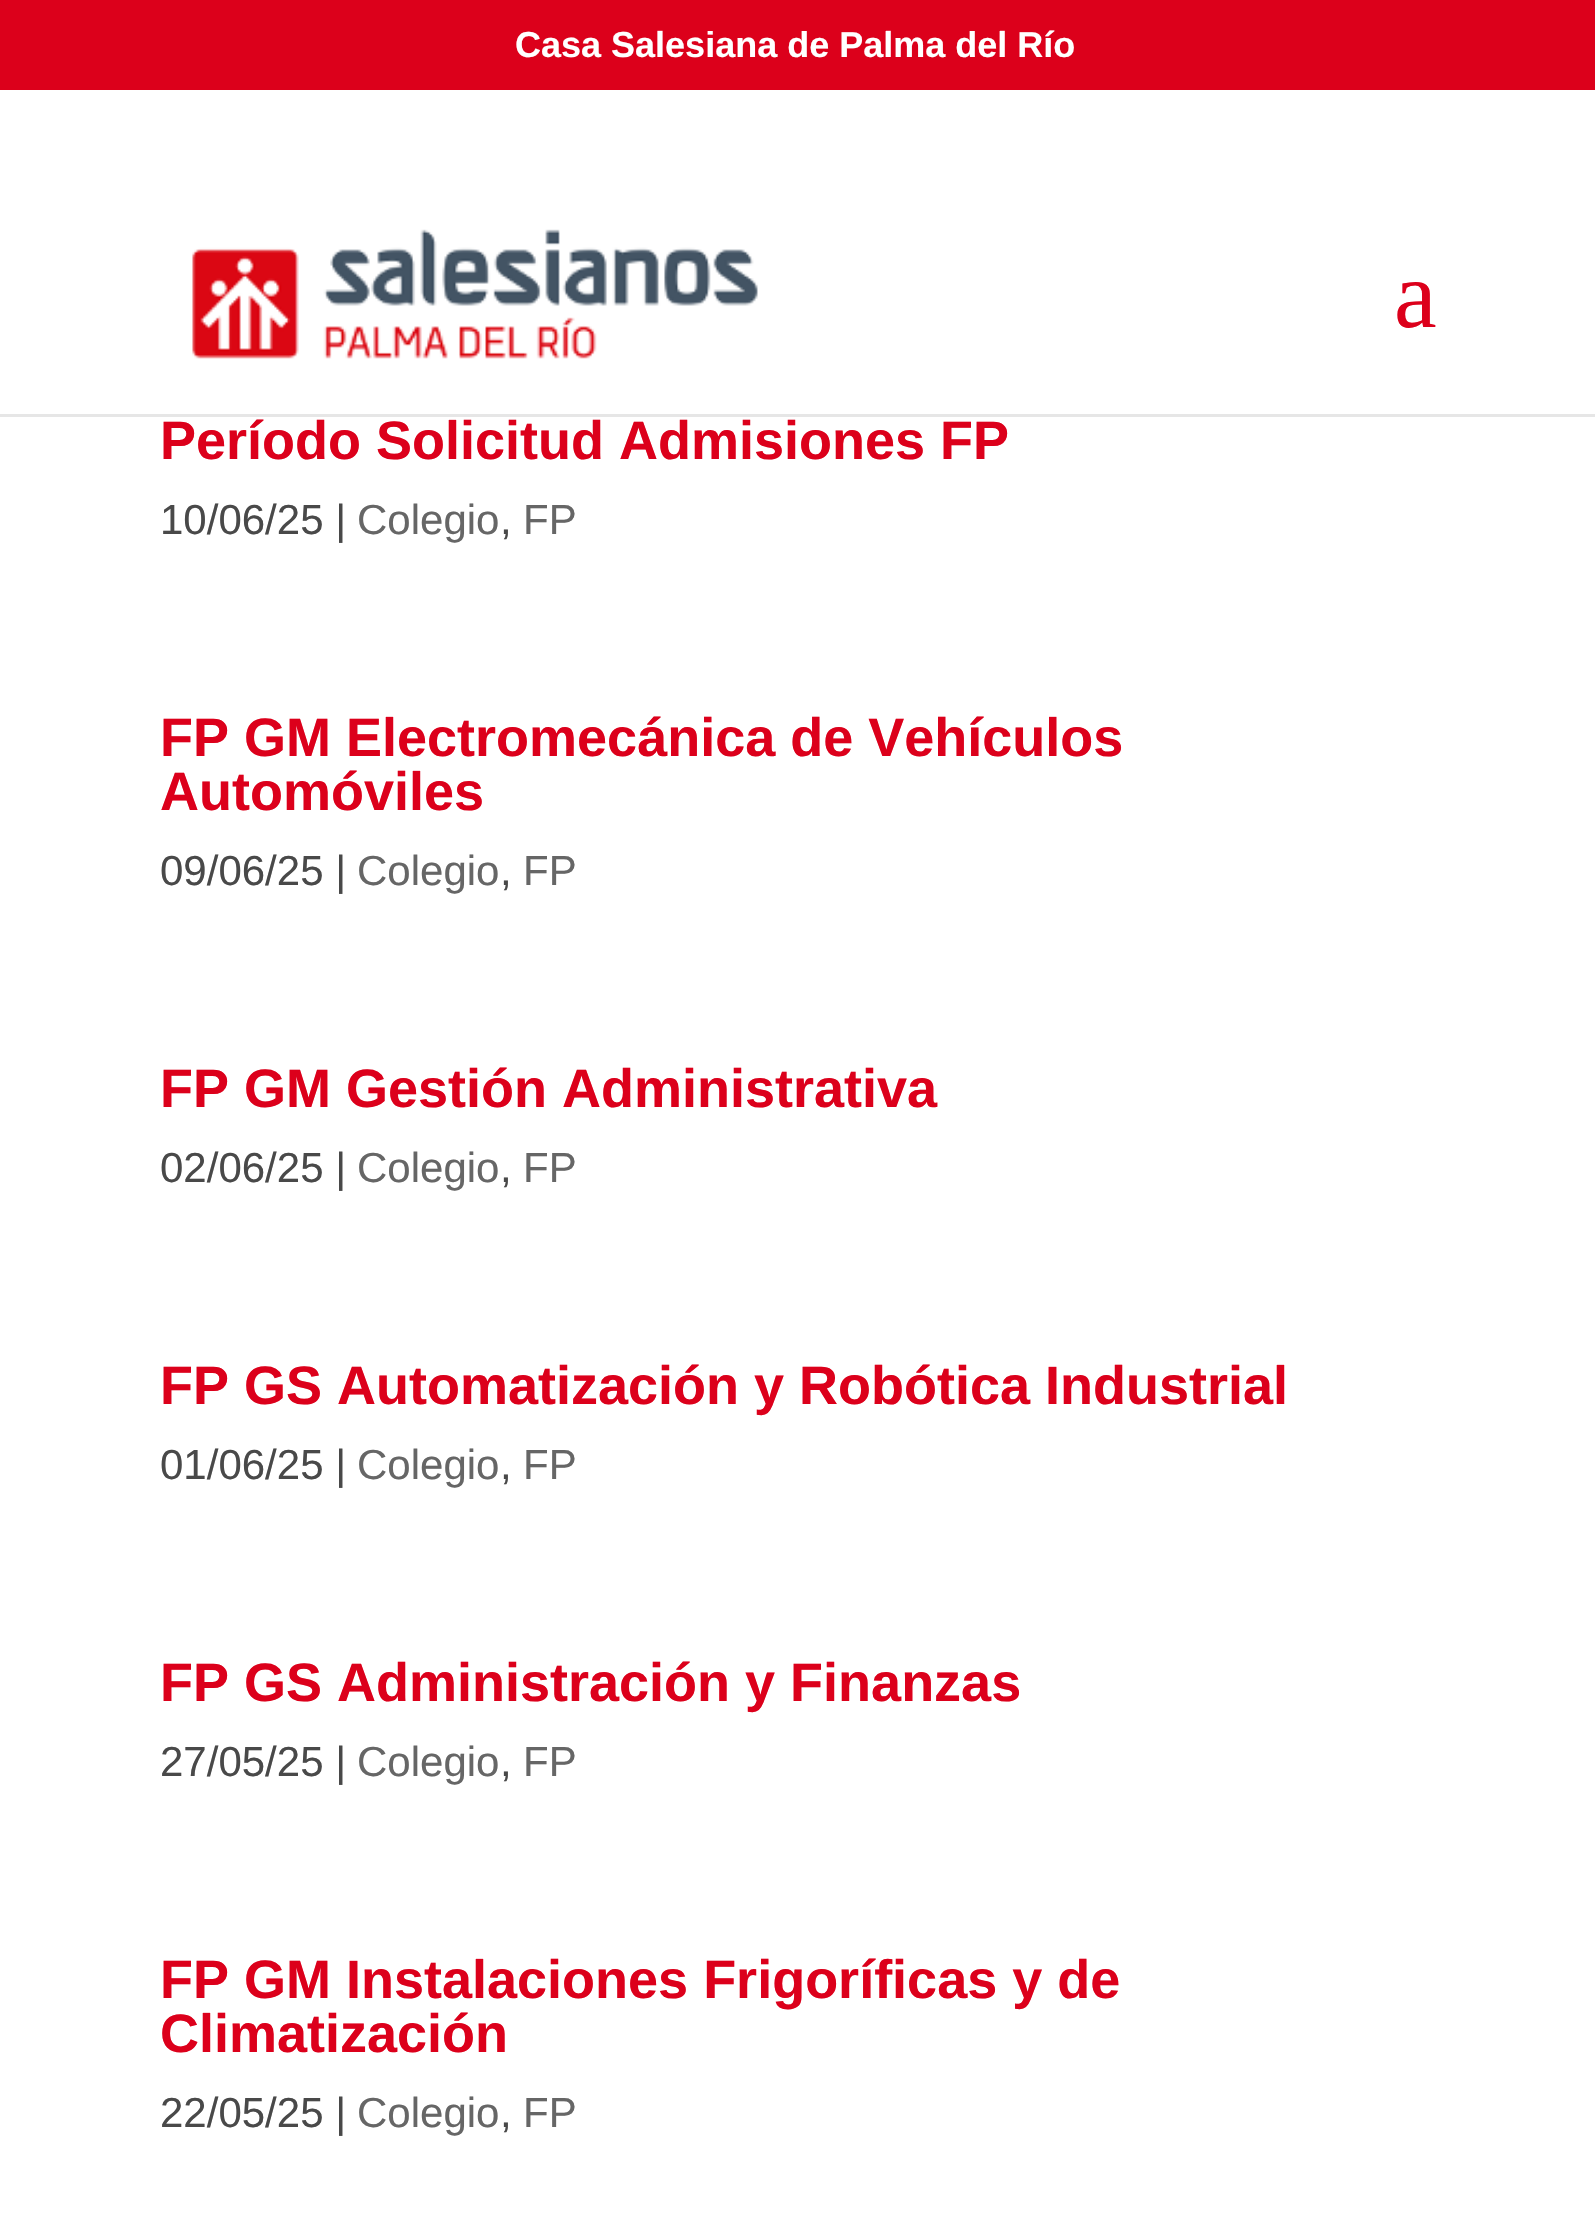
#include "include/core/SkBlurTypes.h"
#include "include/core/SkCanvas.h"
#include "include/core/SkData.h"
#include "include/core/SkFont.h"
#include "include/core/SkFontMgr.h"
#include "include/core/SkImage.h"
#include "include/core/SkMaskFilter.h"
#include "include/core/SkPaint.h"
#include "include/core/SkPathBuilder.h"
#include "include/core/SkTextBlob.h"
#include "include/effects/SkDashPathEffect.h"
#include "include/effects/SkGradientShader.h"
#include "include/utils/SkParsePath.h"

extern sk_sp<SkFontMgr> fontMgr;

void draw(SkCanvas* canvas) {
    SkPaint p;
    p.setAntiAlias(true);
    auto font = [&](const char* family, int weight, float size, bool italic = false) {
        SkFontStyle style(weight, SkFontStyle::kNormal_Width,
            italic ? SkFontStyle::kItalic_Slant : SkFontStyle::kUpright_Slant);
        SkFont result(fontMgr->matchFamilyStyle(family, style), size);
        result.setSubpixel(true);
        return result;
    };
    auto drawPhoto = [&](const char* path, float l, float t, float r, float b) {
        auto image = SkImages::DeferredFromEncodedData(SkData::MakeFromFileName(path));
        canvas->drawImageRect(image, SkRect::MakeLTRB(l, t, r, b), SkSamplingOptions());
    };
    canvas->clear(0xFFFFFFFF);
    p.setColor(0xFFDC001B);
    canvas->drawRect(SkRect::MakeLTRB(0, 0, 1595, 90), p);
    auto font1 = font("Liberation Sans", 700, 36);
    p.setColor(0xFFFFFFFF);
    canvas->drawString("Casa Salesiana de Palma del Río", 515, 57, font1, p);
    p.setColor(0xFFE6E6E6);
    canvas->drawRect(SkRect::MakeLTRB(0, 414, 1595, 417), p);
    drawPhoto("media/1.png", 192, 229, 758, 359);
    auto font2 = font("Liberation Serif", 400, 96);
    p.setColor(0xFFDC001B);
    canvas->drawString("a", 1394, 327, font2, p);
    auto font3 = font("Liberation Sans", 700, 54);
    canvas->drawString("Período Solicitud Admisiones FP", 160, 459, font3, p);
    auto font4 = font("Liberation Sans", 400, 42);
    p.setColor(0xFF494949);
    canvas->drawString("10/06/25 |", 160, 534, font4, p);
    p.setColor(0xFF666666);
    canvas->drawString("Colegio", 357, 534, font4, p);
    p.setColor(0xFF494949);
    canvas->drawString(",", 500, 534, font4, p);
    p.setColor(0xFF666666);
    canvas->drawString("FP", 523, 534, font4, p);
    p.setColor(0xFFDC001B);
    canvas->drawString("FP GM Electromecánica de Vehículos", 160, 756, font3, p);
    canvas->drawString("Automóviles", 160, 810, font3, p);
    p.setColor(0xFF494949);
    canvas->drawString("09/06/25 |", 160, 885, font4, p);
    p.setColor(0xFF666666);
    canvas->drawString("Colegio", 357, 885, font4, p);
    p.setColor(0xFF494949);
    canvas->drawString(",", 500, 885, font4, p);
    p.setColor(0xFF666666);
    canvas->drawString("FP", 523, 885, font4, p);
    p.setColor(0xFFDC001B);
    canvas->drawString("FP GM Gestión Administrativa", 160, 1107, font3, p);
    p.setColor(0xFF494949);
    canvas->drawString("02/06/25 |", 160, 1182, font4, p);
    p.setColor(0xFF666666);
    canvas->drawString("Colegio", 357, 1182, font4, p);
    p.setColor(0xFF494949);
    canvas->drawString(",", 500, 1182, font4, p);
    p.setColor(0xFF666666);
    canvas->drawString("FP", 523, 1182, font4, p);
    p.setColor(0xFFDC001B);
    canvas->drawString("FP GS Automatización y Robótica Industrial", 160, 1404, font3, p);
    p.setColor(0xFF494949);
    canvas->drawString("01/06/25 |", 160, 1479, font4, p);
    p.setColor(0xFF666666);
    canvas->drawString("Colegio", 357, 1479, font4, p);
    p.setColor(0xFF494949);
    canvas->drawString(",", 500, 1479, font4, p);
    p.setColor(0xFF666666);
    canvas->drawString("FP", 523, 1479, font4, p);
    p.setColor(0xFFDC001B);
    canvas->drawString("FP GS Administración y Finanzas", 160, 1701, font3, p);
    p.setColor(0xFF494949);
    canvas->drawString("27/05/25 |", 160, 1776, font4, p);
    p.setColor(0xFF666666);
    canvas->drawString("Colegio", 357, 1776, font4, p);
    p.setColor(0xFF494949);
    canvas->drawString(",", 500, 1776, font4, p);
    p.setColor(0xFF666666);
    canvas->drawString("FP", 523, 1776, font4, p);
    p.setColor(0xFFDC001B);
    canvas->drawString("FP GM Instalaciones Frigoríficas y de", 160, 1998, font3, p);
    canvas->drawString("Climatización", 160, 2052, font3, p);
    p.setColor(0xFF494949);
    canvas->drawString("22/05/25 |", 160, 2127, font4, p);
    p.setColor(0xFF666666);
    canvas->drawString("Colegio", 357, 2127, font4, p);
    p.setColor(0xFF494949);
    canvas->drawString(",", 500, 2127, font4, p);
    p.setColor(0xFF666666);
    canvas->drawString("FP", 523, 2127, font4, p);
}
